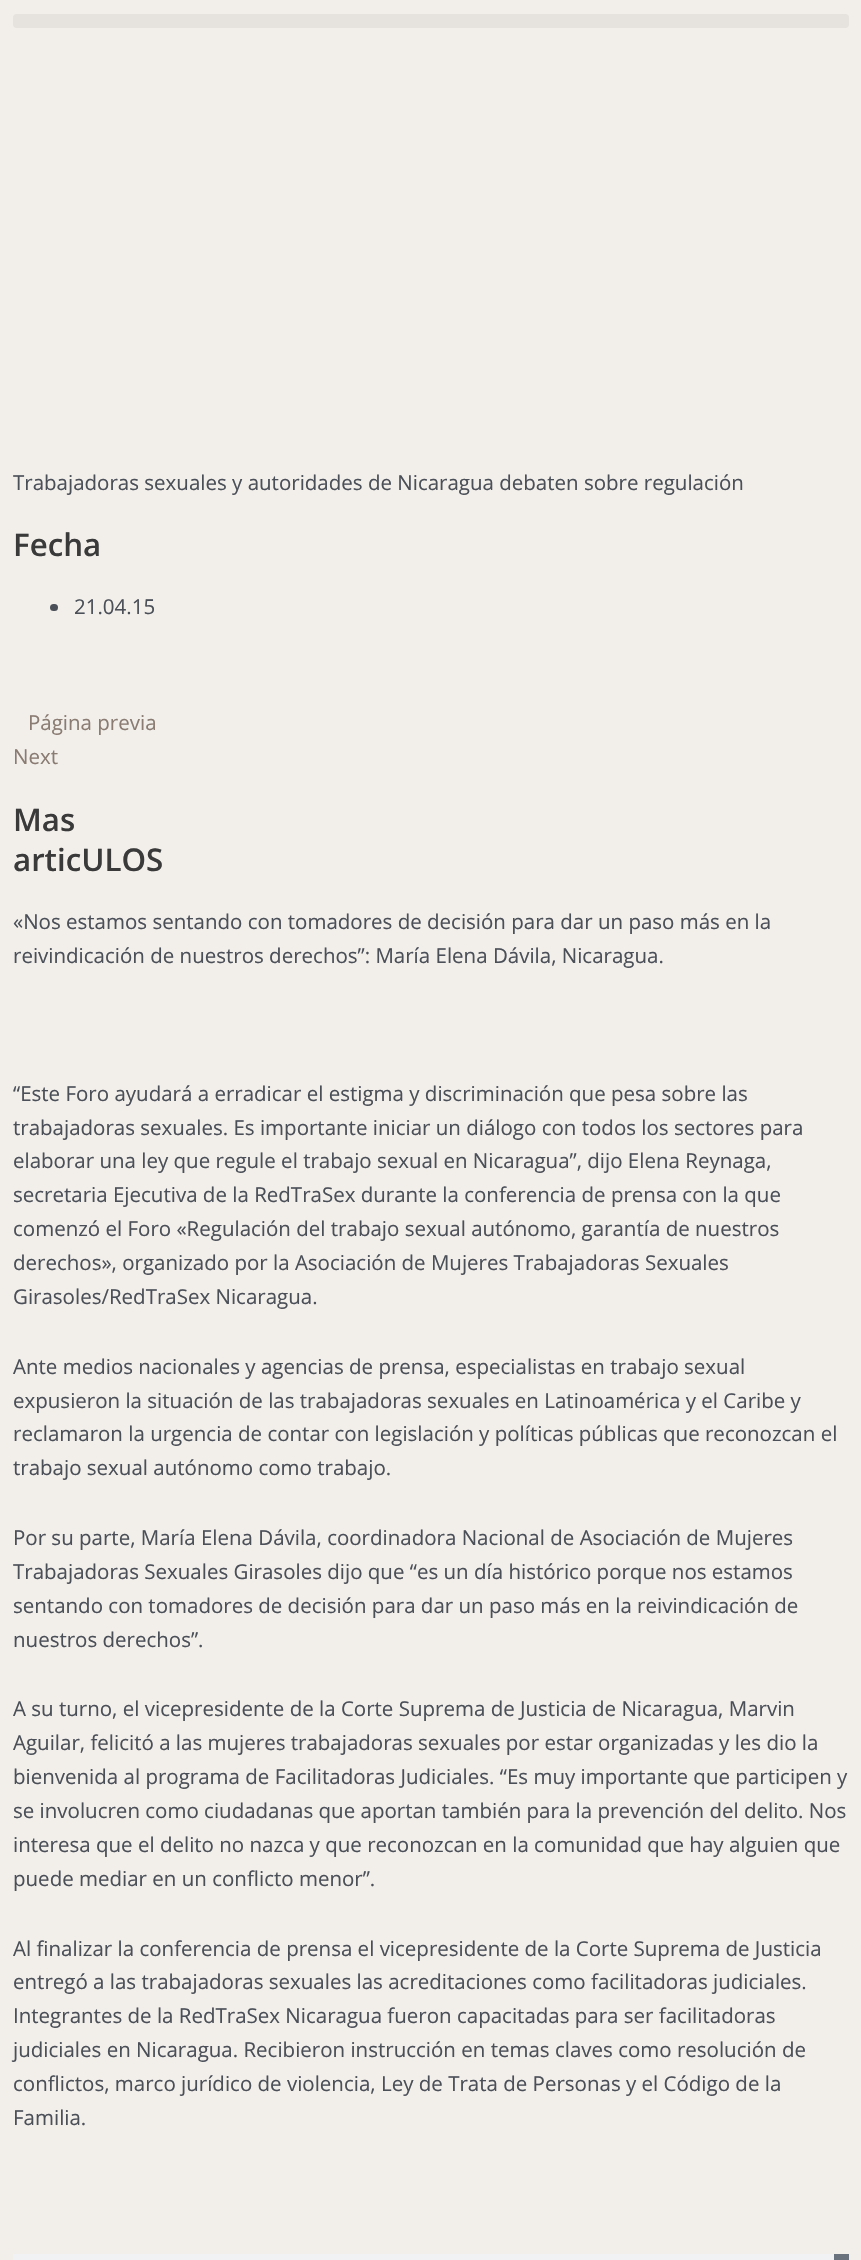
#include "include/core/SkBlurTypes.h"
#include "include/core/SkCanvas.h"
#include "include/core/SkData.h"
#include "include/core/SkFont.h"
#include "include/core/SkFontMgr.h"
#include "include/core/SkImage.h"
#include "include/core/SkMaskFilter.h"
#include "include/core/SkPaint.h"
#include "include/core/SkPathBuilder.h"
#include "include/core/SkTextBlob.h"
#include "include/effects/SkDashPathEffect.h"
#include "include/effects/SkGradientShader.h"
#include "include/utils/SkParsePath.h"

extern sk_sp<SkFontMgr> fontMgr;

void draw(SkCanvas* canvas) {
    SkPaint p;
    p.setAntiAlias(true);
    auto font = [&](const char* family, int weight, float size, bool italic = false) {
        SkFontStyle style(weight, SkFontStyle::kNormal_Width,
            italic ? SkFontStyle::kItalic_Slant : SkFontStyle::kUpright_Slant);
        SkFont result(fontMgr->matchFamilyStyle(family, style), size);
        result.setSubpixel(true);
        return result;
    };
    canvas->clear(0xFFF2EFEB);
    p.setColor(0xFFE6E3DF);
    canvas->drawRoundRect(SkRect::MakeLTRB(13, 14, 849, 28), 4, 4, p);
    auto font1 = font("Open Sans", 400, 20.5f);
    p.setColor(0xFF4B4F58);
    canvas->drawString("Trabajadoras sexuales y autoridades de Nicaragua debaten sobre regulación", 13, 490, font1, p);
    auto font2 = font("Open Sans", 600, 31.25f);
    p.setColor(0xFF3A3A3A);
    canvas->drawString("Fecha", 13, 556, font2, p);
    p.setColor(0xFF4B4F58);
    canvas->drawRoundRect(SkRect::MakeLTRB(50, 604, 58, 611), 3.5f, 3.5f, p);
    canvas->drawString("21.04.15", 74, 614, font1, p);
    p.setColor(0xFF8A7C73);
    canvas->drawString("Página previa", 28, 730, font1, p);
    canvas->drawString("Next", 13, 764, font1, p);
    p.setColor(0xFF3A3A3A);
    canvas->drawString("Mas", 13, 831, font2, p);
    canvas->drawString("articULOS", 13, 871, font2, p);
    p.setColor(0xFF4B4F58);
    {
        const struct { const char* s; float x, y; } items[] = {
            {"«Nos estamos sentando con tomadores de decisión para dar un paso más en la", 13, 929},
            {"reivindicación de nuestros derechos”: María Elena Dávila, Nicaragua.", 13, 963},
            {"“Este Foro ayudará a erradicar el estigma y discriminación que pesa sobre las", 13, 1101},
            {"trabajadoras sexuales. Es importante iniciar un diálogo con todos los sectores para", 13, 1135},
            {"elaborar una ley que regule el trabajo sexual en Nicaragua”, dijo Elena Reynaga,", 13, 1168},
            {"secretaria Ejecutiva de la RedTraSex durante la conferencia de prensa con la que", 13, 1202},
            {"comenzó el Foro «Regulación del trabajo sexual autónomo, garantía de nuestros", 13, 1236},
            {"derechos», organizado por la Asociación de Mujeres Trabajadoras Sexuales", 13, 1270},
            {"Girasoles/RedTraSex Nicaragua.", 13, 1304},
            {"Ante medios nacionales y agencias de prensa, especialistas en trabajo sexual", 13, 1374},
            {"expusieron la situación de las trabajadoras sexuales en Latinoamérica y el Caribe y", 13, 1408},
            {"reclamaron la urgencia de contar con legislación y políticas públicas que reconozcan el", 13, 1441},
            {"trabajo sexual autónomo como trabajo.", 13, 1475},
            {"Por su parte, María Elena Dávila, coordinadora Nacional de Asociación de Mujeres", 13, 1545},
            {"Trabajadoras Sexuales Girasoles dijo que “es un día histórico porque nos estamos", 13, 1579},
            {"sentando con tomadores de decisión para dar un paso más en la reivindicación de", 13, 1613},
            {"nuestros derechos”.", 13, 1647},
            {"A su turno, el vicepresidente de la Corte Suprema de Justicia de Nicaragua, Marvin", 13, 1716},
            {"Aguilar, felicitó a las mujeres trabajadoras sexuales por estar organizadas y les dio la", 13, 1750},
            {"bienvenida al programa de Facilitadoras Judiciales. “Es muy importante que participen y", 13, 1784},
            {"se involucren como ciudadanas que aportan también para la prevención del delito. Nos", 13, 1818},
            {"interesa que el delito no nazca y que reconozcan en la comunidad que hay alguien que", 13, 1852},
            {"puede mediar en un conflicto menor”.", 13, 1886},
            {"Al finalizar la conferencia de prensa el vicepresidente de la Corte Suprema de Justicia", 13, 1956},
            {"entregó a las trabajadoras sexuales las acreditaciones como facilitadoras judiciales.", 13, 1989},
            {"Integrantes de la RedTraSex Nicaragua fueron capacitadas para ser facilitadoras", 13, 2023},
            {"judiciales en Nicaragua. Recibieron instrucción en temas claves como resolución de", 13, 2057},
            {"conflictos, marco jurídico de violencia, Ley de Trata de Personas y el Código de la", 13, 2091},
            {"Familia.", 13, 2125},
        };
        for (auto [s, x, y] : items) {
            canvas->drawString(s, x, y, font1, p);
        }
    }
    p.setColor(0xFFF1F2F3);
    canvas->drawRect(SkRect::MakeLTRB(13, 2254, 834, 2260), p);
    p.setColor(0xFF69727D);
    canvas->drawRect(SkRect::MakeLTRB(834, 2254, 849, 2260), p);
}
